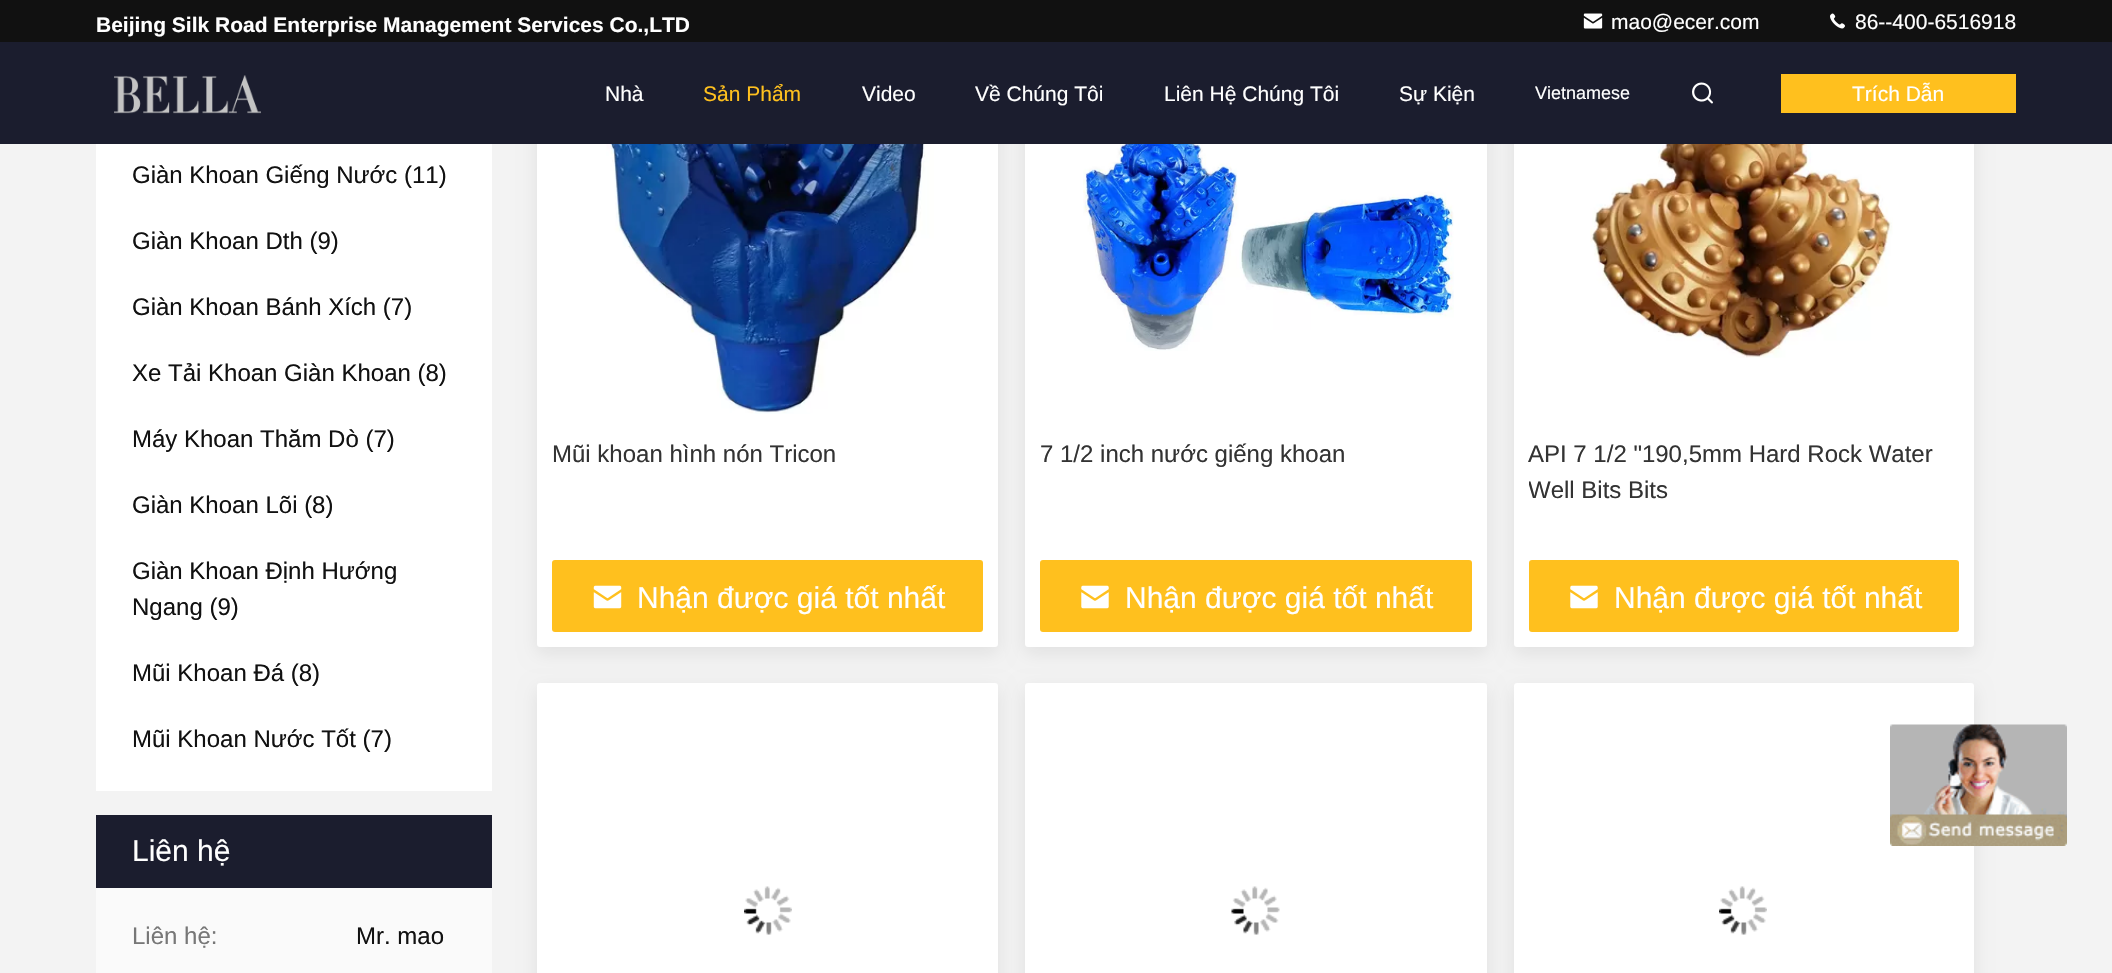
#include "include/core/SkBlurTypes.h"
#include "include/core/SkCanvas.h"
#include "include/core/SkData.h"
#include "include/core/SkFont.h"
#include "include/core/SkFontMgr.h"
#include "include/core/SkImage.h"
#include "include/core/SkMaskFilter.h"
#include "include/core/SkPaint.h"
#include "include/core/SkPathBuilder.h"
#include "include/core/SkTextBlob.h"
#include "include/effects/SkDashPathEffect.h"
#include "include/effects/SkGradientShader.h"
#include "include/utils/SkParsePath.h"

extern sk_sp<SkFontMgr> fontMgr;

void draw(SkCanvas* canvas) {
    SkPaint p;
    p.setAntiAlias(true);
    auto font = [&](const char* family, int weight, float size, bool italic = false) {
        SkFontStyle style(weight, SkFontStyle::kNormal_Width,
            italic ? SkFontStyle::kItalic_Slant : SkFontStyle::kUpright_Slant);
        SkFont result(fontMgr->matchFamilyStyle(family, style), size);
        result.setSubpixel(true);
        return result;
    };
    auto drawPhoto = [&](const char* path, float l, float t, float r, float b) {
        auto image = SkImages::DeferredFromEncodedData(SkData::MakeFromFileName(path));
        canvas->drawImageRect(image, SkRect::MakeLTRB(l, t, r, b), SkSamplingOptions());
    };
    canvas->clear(0xFFF3F3F3);
    p.setColor(0x14000000);
    p.setMaskFilter(SkMaskFilter::MakeBlur(kNormal_SkBlurStyle, 9));
    canvas->drawRoundRect(SkRect::MakeLTRB(537, -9, 998, 653), 3, 3, p);
    p.setMaskFilter(nullptr);
    p.setColor(0xFFFFFFFF);
    canvas->drawRoundRect(SkRect::MakeLTRB(537, -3, 998, 647), 3, 3, p);
    p.setColor(0x14000000);
    p.setMaskFilter(SkMaskFilter::MakeBlur(kNormal_SkBlurStyle, 9));
    canvas->drawRoundRect(SkRect::MakeLTRB(1025, -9, 1487, 653), 3, 3, p);
    p.setMaskFilter(nullptr);
    p.setColor(0xFFFFFFFF);
    canvas->drawRoundRect(SkRect::MakeLTRB(1025, -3, 1487, 647), 3, 3, p);
    p.setColor(0x14000000);
    p.setMaskFilter(SkMaskFilter::MakeBlur(kNormal_SkBlurStyle, 9));
    canvas->drawRoundRect(SkRect::MakeLTRB(1514, -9, 1974, 653), 3, 3, p);
    p.setMaskFilter(nullptr);
    p.setColor(0xFFFFFFFF);
    canvas->drawRoundRect(SkRect::MakeLTRB(1514, -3, 1974, 647), 3, 3, p);
    p.setColor(0xFF111111);
    canvas->drawRect(SkRect::MakeLTRB(0, 0, 2112, 42), p);
    auto font1 = font("Liberation Sans", 700, 21);
    p.setColor(0xFFFFFFFF);
    canvas->drawString("Beijing Silk Road Enterprise Management Services Co.,LTD", 96, 32, font1, p);
    drawPhoto("media/1.png", 1583, 13, 1603, 29);
    auto font2 = font("Liberation Sans", 400, 21);
    canvas->drawString("mao@ecer.com", 1611, 29, font2, p);
    drawPhoto("media/2.png", 1830, 13, 1845, 29);
    canvas->drawString("86--400-6516918", 1855, 29, font2, p);
    p.setColor(0xFF1B1D2E);
    canvas->drawRect(SkRect::MakeLTRB(0, 42, 2112, 144), p);
    drawPhoto("media/3.png", 114, 75, 261, 114);
    p.setColor(0xFFFFFFFF);
    canvas->drawString("Nhà", 605, 101, font2, p);
    p.setColor(0xFFFFC01E);
    canvas->drawString("Sản Phẩm", 703, 101, font2, p);
    p.setColor(0xFFFFFFFF);
    {
        const struct { const char* s; float x, y; } items[] = {
            {"Video", 862, 101},
            {"Về Chúng Tôi", 975, 101},
            {"Liên Hệ Chúng Tôi", 1164, 101},
            {"Sự Kiện", 1399, 101},
        };
        for (auto [s, x, y] : items) {
            canvas->drawString(s, x, y, font2, p);
        }
    }
    auto font3 = font("Liberation Sans", 400, 18);
    canvas->drawString("Vietnamese", 1535, 99, font3, p);
    drawPhoto("media/4.png", 1692, 82, 1713, 104);
    p.setColor(0xFFFFC01E);
    canvas->drawRect(SkRect::MakeLTRB(1781, 74, 2016, 113), p);
    p.setColor(0xFFFFFFFF);
    canvas->drawString("Trích Dẫn", 1852, 101, font2, p);
    canvas->drawRect(SkRect::MakeLTRB(96, 144, 492, 791), p);
    auto font4 = font("Liberation Sans", 400, 24);
    p.setColor(0xFF111111);
    {
        const struct { const char* s; float x, y; } items[] = {
            {"Giàn Khoan Giếng Nước (11)", 132, 183},
            {"Giàn Khoan Dth (9)", 132, 249},
            {"Giàn Khoan Bánh Xích (7)", 132, 315},
            {"Xe Tải Khoan Giàn Khoan (8)", 132, 381},
            {"Máy Khoan Thăm Dò (7)", 132, 447},
            {"Giàn Khoan Lõi (8)", 132, 513},
            {"Giàn Khoan Định Hướng", 132, 579},
            {"Ngang (9)", 132, 615},
            {"Mũi Khoan Đá (8)", 132, 681},
            {"Mũi Khoan Nước Tốt (7)", 132, 747},
        };
        for (auto [s, x, y] : items) {
            canvas->drawString(s, x, y, font4, p);
        }
    }
    p.setColor(0xFF1B1D2E);
    canvas->drawRect(SkRect::MakeLTRB(96, 815, 492, 888), p);
    auto font5 = font("Liberation Sans", 400, 30);
    p.setColor(0xFFFFFFFF);
    canvas->drawString("Liên hệ", 132, 861, font5, p);
    p.setColor(0xFFFAFAFA);
    canvas->drawRect(SkRect::MakeLTRB(96, 888, 492, 973), p);
    p.setColor(0xFF777777);
    canvas->drawString("Liên hệ:", 132, 944, font4, p);
    p.setColor(0xFF111111);
    canvas->drawString("Mr. mao", 356, 944, font4, p);
    drawPhoto("media/5.png", 606, 144, 934, 414);
    p.setColor(0xFF333333);
    canvas->drawString("Mũi khoan hình nón Tricon", 552, 462, font4, p);
    p.setColor(0xFFFFC01E);
    canvas->drawRoundRect(SkRect::MakeLTRB(552, 560, 983, 632), 3, 3, p);
    drawPhoto("media/6.png", 593, 585, 622, 609);
    p.setColor(0xFFFFFFFF);
    canvas->drawString("Nhận được giá tốt nhất", 637, 608, font5, p);
    drawPhoto("media/7.png", 1083, 144, 1454, 351);
    p.setColor(0xFF333333);
    canvas->drawString("7 1/2 inch nước giếng khoan", 1040, 462, font4, p);
    p.setColor(0xFFFFC01E);
    canvas->drawRoundRect(SkRect::MakeLTRB(1040, 560, 1472, 632), 3, 3, p);
    drawPhoto("media/8.png", 1081, 585, 1109, 609);
    p.setColor(0xFFFFFFFF);
    canvas->drawString("Nhận được giá tốt nhất", 1125, 608, font5, p);
    drawPhoto("media/9.png", 1590, 144, 1893, 358);
    p.setColor(0xFF333333);
    canvas->drawString("API 7 1/2 \"190,5mm Hard Rock Water", 1528, 462, font4, p);
    canvas->save();
    canvas->clipRect(SkRect::MakeLTRB(1529, 437, 1959, 539));
    canvas->drawString("Well Bits Bits", 1528, 498, font4, p);
    canvas->restore();
    p.setColor(0xFFFFC01E);
    canvas->drawRoundRect(SkRect::MakeLTRB(1529, 560, 1959, 632), 3, 3, p);
    drawPhoto("media/8.png", 1570, 585, 1598, 609);
    p.setColor(0xFFFFFFFF);
    canvas->drawString("Nhận được giá tốt nhất", 1614, 608, font5, p);
    p.setColor(0x14000000);
    p.setMaskFilter(SkMaskFilter::MakeBlur(kNormal_SkBlurStyle, 9));
    canvas->drawRoundRect(SkRect::MakeLTRB(537, 689, 998, 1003), 3, 3, p);
    p.setMaskFilter(nullptr);
    p.setColor(0xFFFFFFFF);
    canvas->drawRoundRect(SkRect::MakeLTRB(537, 683, 998, 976), 3, 3, p);
    drawPhoto("media/10.png", 744, 886, 792, 935);
    p.setColor(0x14000000);
    p.setMaskFilter(SkMaskFilter::MakeBlur(kNormal_SkBlurStyle, 9));
    canvas->drawRoundRect(SkRect::MakeLTRB(1025, 689, 1487, 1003), 3, 3, p);
    p.setMaskFilter(nullptr);
    p.setColor(0xFFFFFFFF);
    canvas->drawRoundRect(SkRect::MakeLTRB(1025, 683, 1487, 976), 3, 3, p);
    drawPhoto("media/11.png", 1231, 886, 1280, 935);
    p.setColor(0x14000000);
    p.setMaskFilter(SkMaskFilter::MakeBlur(kNormal_SkBlurStyle, 9));
    canvas->drawRoundRect(SkRect::MakeLTRB(1514, 689, 1974, 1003), 3, 3, p);
    p.setMaskFilter(nullptr);
    p.setColor(0xFFFFFFFF);
    canvas->drawRoundRect(SkRect::MakeLTRB(1514, 683, 1974, 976), 3, 3, p);
    drawPhoto("media/12.png", 1719, 886, 1767, 935);
    drawPhoto("media/13.png", 1890, 724, 2067, 846);
}
